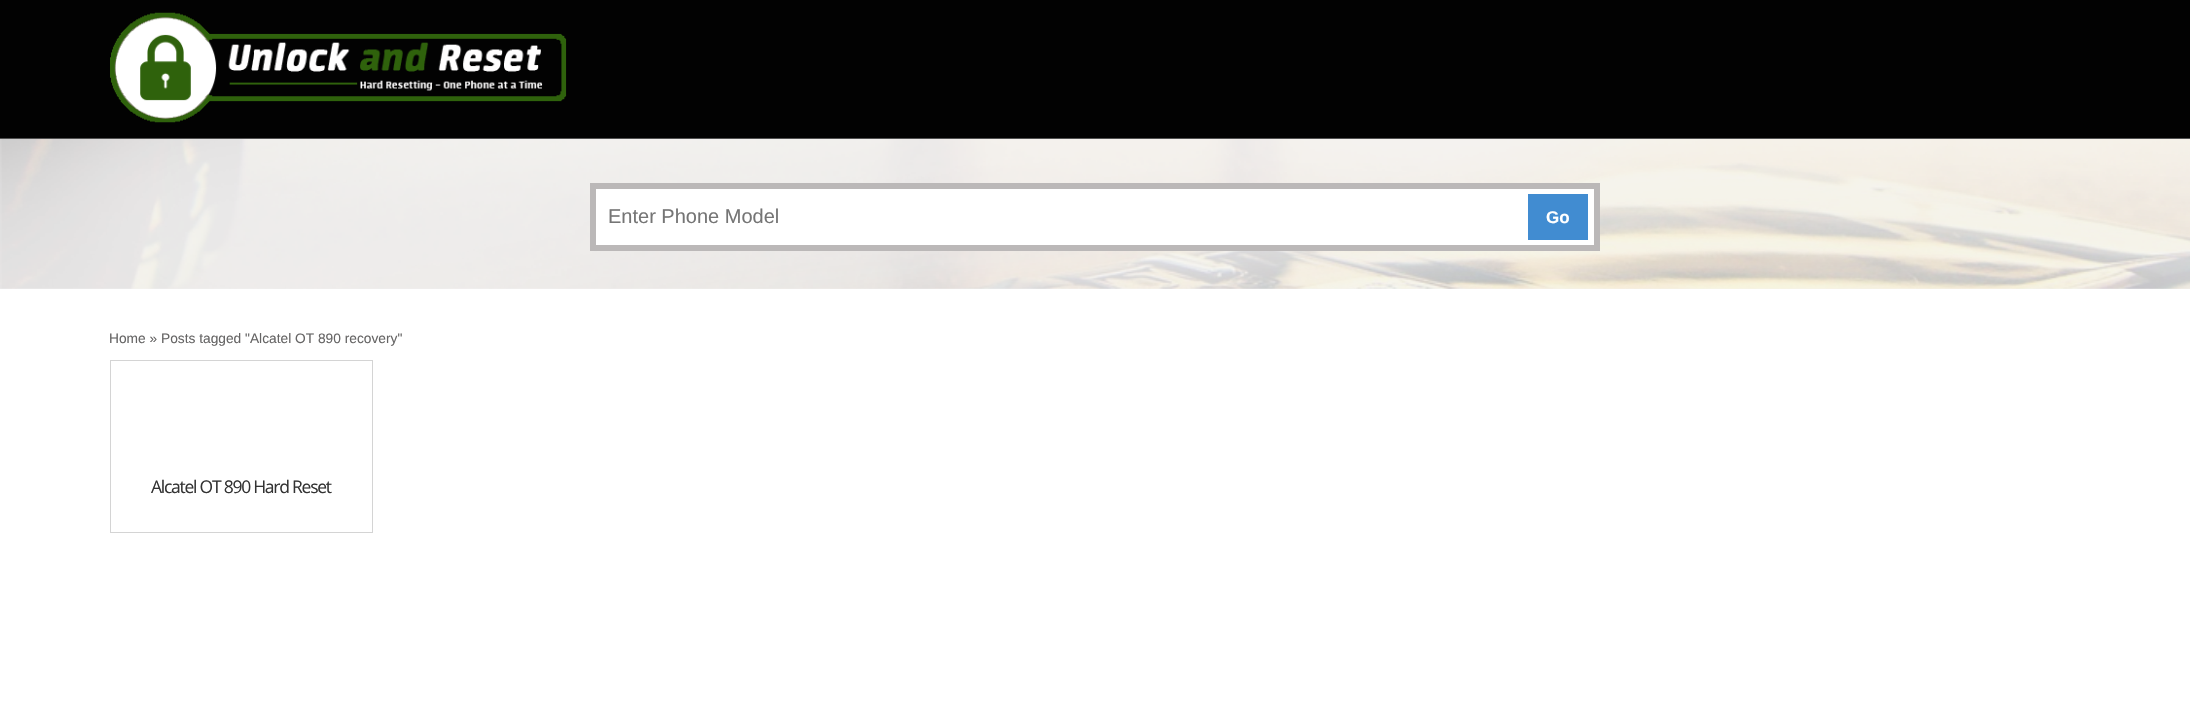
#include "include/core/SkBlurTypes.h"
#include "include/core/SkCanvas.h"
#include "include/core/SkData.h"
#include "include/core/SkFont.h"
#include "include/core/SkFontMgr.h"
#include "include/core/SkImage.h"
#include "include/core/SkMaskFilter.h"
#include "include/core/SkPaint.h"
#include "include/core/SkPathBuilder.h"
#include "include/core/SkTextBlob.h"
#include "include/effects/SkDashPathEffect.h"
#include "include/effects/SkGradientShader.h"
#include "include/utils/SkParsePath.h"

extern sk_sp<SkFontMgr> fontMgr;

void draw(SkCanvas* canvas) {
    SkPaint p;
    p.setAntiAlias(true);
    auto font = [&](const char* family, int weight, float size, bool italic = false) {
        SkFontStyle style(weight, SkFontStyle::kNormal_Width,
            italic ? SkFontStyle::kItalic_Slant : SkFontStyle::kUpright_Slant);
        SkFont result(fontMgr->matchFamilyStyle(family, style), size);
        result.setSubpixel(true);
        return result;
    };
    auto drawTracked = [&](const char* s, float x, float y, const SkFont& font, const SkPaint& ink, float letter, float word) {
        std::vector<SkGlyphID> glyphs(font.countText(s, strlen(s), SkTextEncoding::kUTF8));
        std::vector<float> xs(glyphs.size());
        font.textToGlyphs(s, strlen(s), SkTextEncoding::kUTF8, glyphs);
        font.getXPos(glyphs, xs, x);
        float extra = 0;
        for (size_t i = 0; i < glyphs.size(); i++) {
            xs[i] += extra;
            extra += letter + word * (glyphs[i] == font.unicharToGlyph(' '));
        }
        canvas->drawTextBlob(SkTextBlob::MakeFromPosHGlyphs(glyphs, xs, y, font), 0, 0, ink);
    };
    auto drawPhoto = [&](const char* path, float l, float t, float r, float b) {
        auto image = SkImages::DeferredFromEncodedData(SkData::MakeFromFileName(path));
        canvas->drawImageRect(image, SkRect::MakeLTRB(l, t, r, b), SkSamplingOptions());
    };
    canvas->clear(0xFFFFFFFF);
    p.setColor(0xFF020202);
    canvas->drawRect(SkRect::MakeLTRB(0, 0, 2190, 138), p);
    drawPhoto("media/1.png", 110, 12, 567, 123);
    p.setColor(0xFF515151);
    canvas->drawRect(SkRect::MakeLTRB(0, 138, 2190, 139), p);
    p.setColor(0xFFF4F3F3);
    canvas->drawRect(SkRect::MakeLTRB(0, 139, 2190, 289), p);
    drawPhoto("media/2.png", 0, 139, 2190, 289);
    p.setColor(0xFFFFFFFF);
    canvas->drawRect(SkRect::MakeLTRB(593, 186, 1597, 248), p);
    p.setStyle(SkPaint::kStroke_Style);
    p.setStrokeWidth(6);
    p.setColor(0xFFBBB8B8);
    canvas->drawRect(SkRect::MakeLTRB(593, 186, 1597, 248), p);
    auto font1 = font("Liberation Sans", 400, 20);
    p.setStyle(SkPaint::kFill_Style);
    p.setColor(0xFF757575);
    canvas->drawString("Enter Phone Model", 608, 223, font1, p);
    p.setColor(0xFF418CD1);
    canvas->drawRect(SkRect::MakeLTRB(1528, 194, 1588, 240), p);
    auto font2 = font("Liberation Sans", 700, 17);
    p.setColor(0xFFFFFFFF);
    canvas->drawString("Go", 1546, 223, font2, p);
    auto font3 = font("Liberation Sans", 400, 13.75f);
    p.setColor(0xFF666565);
    canvas->drawString("Home » Posts tagged \"Alcatel OT 890 recovery\"", 109, 343, font3, p);
    p.setStyle(SkPaint::kStroke_Style);
    p.setStrokeWidth(1);
    p.setColor(0xFFD4D4D4);
    canvas->drawRect(SkRect::MakeLTRB(110.5f, 360.5f, 372.5f, 532.5f), p);
    auto font4 = font("Open Sans", 400, 17.5f);
    p.setStyle(SkPaint::kFill_Style);
    p.setColor(0xFF333333);
    drawTracked("Alcatel OT 890 Hard Reset", 151, 493, font4, p, -1.25f, 0);
}
